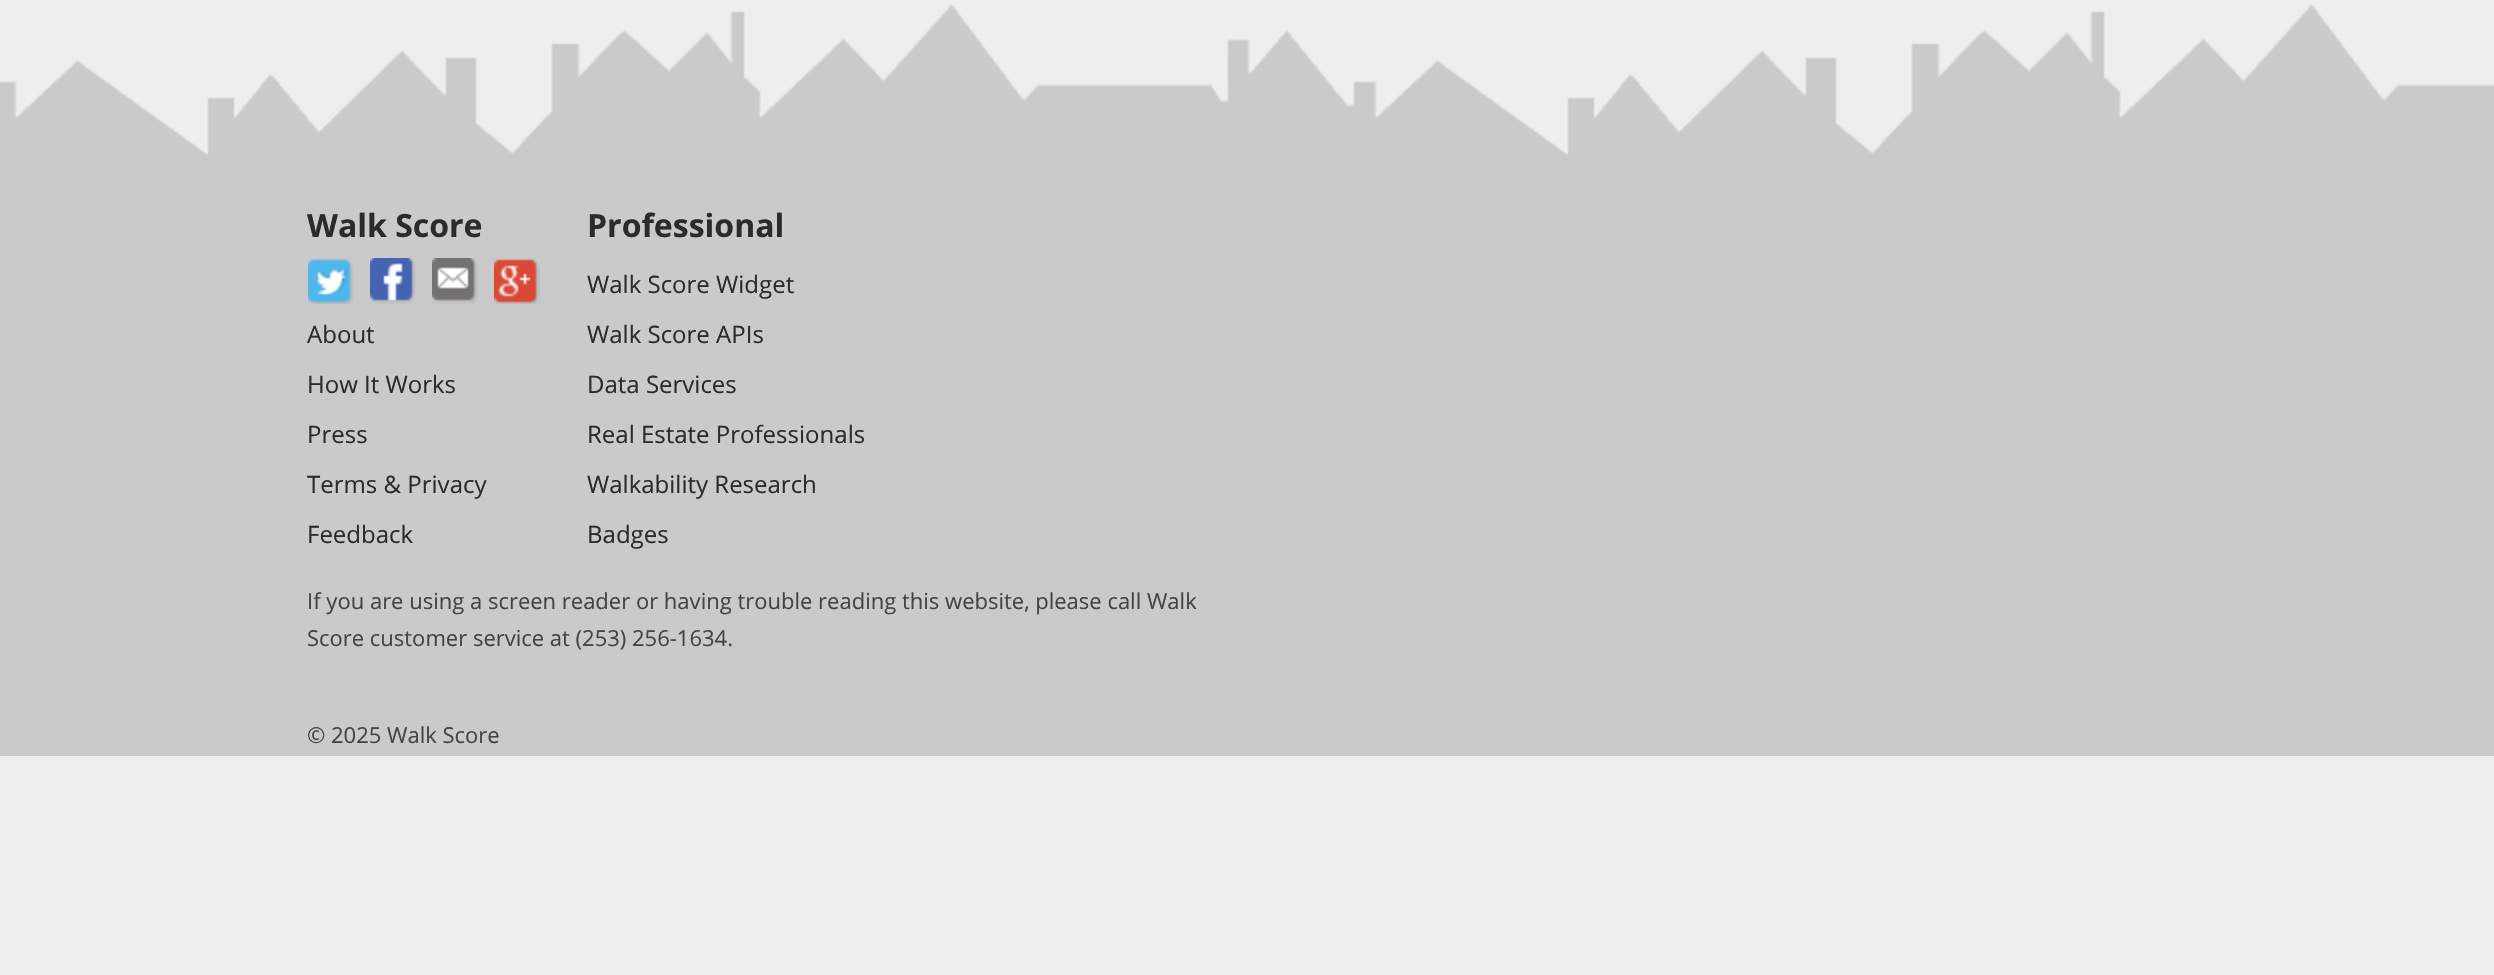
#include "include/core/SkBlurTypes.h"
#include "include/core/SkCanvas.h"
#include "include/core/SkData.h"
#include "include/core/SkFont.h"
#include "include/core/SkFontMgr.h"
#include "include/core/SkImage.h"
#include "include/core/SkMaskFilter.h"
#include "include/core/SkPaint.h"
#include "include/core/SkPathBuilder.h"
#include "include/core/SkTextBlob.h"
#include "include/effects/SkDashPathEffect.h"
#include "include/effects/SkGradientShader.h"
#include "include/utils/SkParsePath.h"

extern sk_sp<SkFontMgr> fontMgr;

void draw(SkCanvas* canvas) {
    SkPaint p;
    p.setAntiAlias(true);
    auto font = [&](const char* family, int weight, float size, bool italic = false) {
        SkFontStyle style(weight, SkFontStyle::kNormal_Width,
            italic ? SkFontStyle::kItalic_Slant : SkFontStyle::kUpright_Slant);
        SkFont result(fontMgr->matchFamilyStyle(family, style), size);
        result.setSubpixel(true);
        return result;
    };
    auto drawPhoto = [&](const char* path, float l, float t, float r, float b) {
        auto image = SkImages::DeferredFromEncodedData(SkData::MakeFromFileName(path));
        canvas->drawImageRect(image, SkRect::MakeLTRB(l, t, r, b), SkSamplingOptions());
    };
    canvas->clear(0xFFEEEEEE);
    p.setColor(0xFFCACACA);
    canvas->drawRect(SkRect::MakeLTRB(0, 155, 2494, 756), p);
    drawPhoto("media/1.png", 0, 4, 2494, 155);
    auto font1 = font("Open Sans", 700, 32);
    p.setColor(0xFF2B2B2B);
    canvas->drawString("Walk Score", 307, 237, font1, p);
    drawPhoto("media/2.png", 308, 258, 354, 304);
    drawPhoto("media/3.png", 370, 258, 416, 304);
    drawPhoto("media/4.png", 432, 258, 478, 304);
    drawPhoto("media/5.png", 494, 258, 540, 304);
    auto font2 = font("Open Sans", 400, 24);
    {
        const struct { const char* s; float x, y; } items[] = {
            {"About", 307, 343},
            {"How It Works", 307, 393},
            {"Press", 307, 443},
            {"Terms & Privacy", 307, 493},
            {"Feedback", 307, 543},
        };
        for (auto [s, x, y] : items) {
            canvas->drawString(s, x, y, font2, p);
        }
    }
    canvas->drawString("Professional", 587, 237, font1, p);
    {
        const struct { const char* s; float x, y; } items[] = {
            {"Walk Score Widget", 587, 293},
            {"Walk Score APIs", 587, 343},
            {"Data Services", 587, 393},
            {"Real Estate Professionals", 587, 443},
            {"Walkability Research", 587, 493},
            {"Badges", 587, 543},
        };
        for (auto [s, x, y] : items) {
            canvas->drawString(s, x, y, font2, p);
        }
    }
    auto font3 = font("Open Sans", 400, 22);
    p.setColor(0xFF444444);
    {
        const struct { const char* s; float x, y; } items[] = {
            {"If you are using a screen reader or having trouble reading this website, please call Walk", 307, 609},
            {"Score customer service at (253) 256-1634.", 307, 646},
            {"© 2025 Walk Score", 307, 743},
        };
        for (auto [s, x, y] : items) {
            canvas->drawString(s, x, y, font3, p);
        }
    }
}
